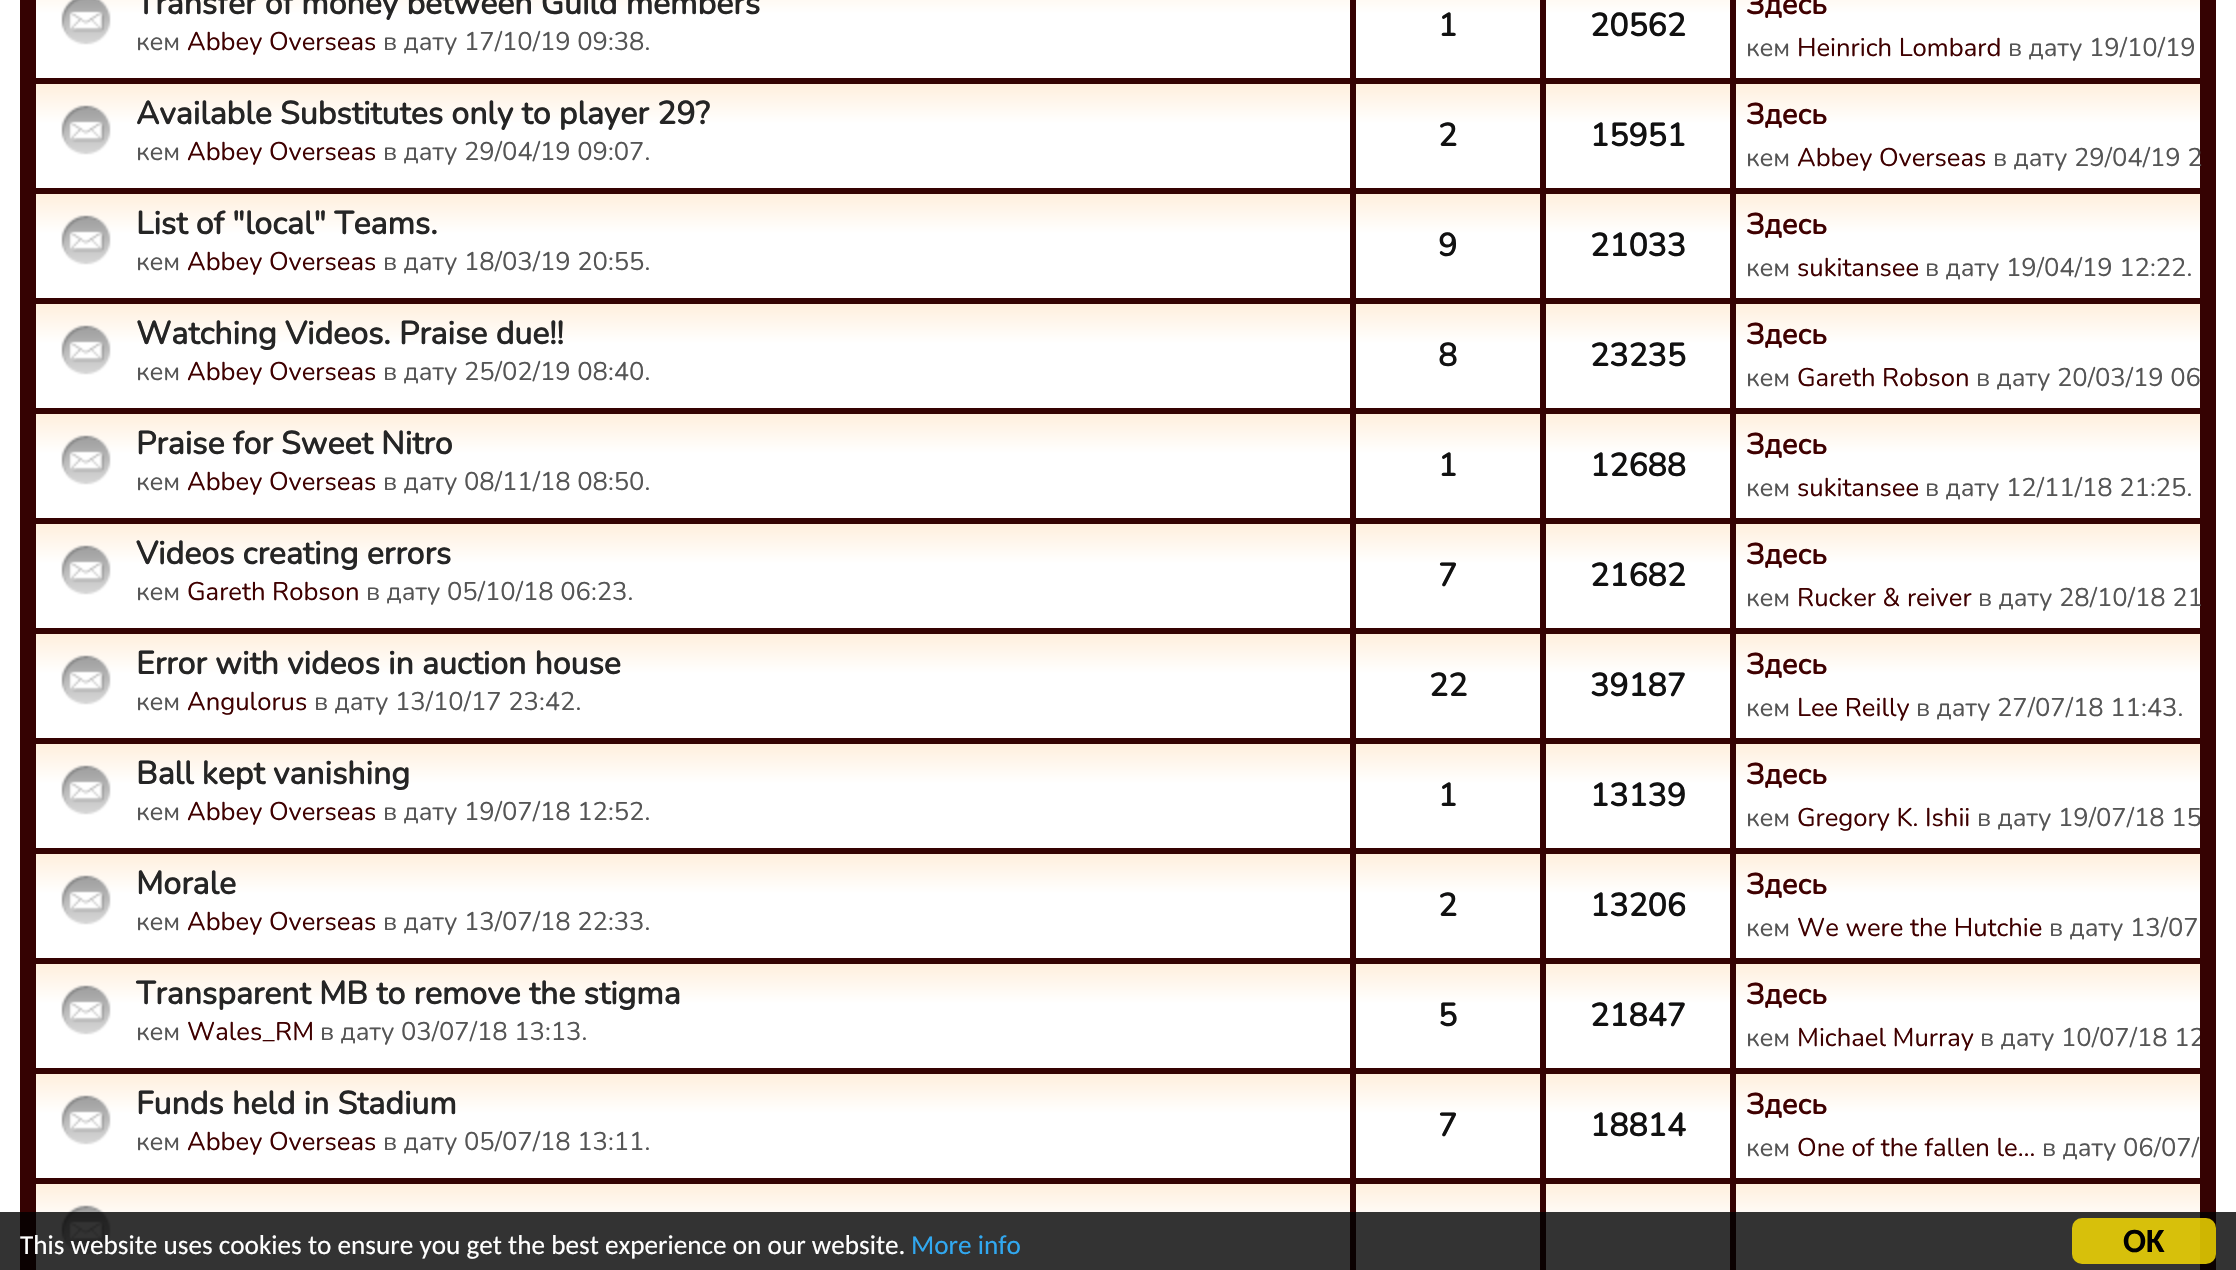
#include "include/core/SkBlurTypes.h"
#include "include/core/SkCanvas.h"
#include "include/core/SkData.h"
#include "include/core/SkFont.h"
#include "include/core/SkFontMgr.h"
#include "include/core/SkImage.h"
#include "include/core/SkMaskFilter.h"
#include "include/core/SkPaint.h"
#include "include/core/SkPathBuilder.h"
#include "include/core/SkTextBlob.h"
#include "include/effects/SkDashPathEffect.h"
#include "include/effects/SkGradientShader.h"
#include "include/utils/SkParsePath.h"

extern sk_sp<SkFontMgr> fontMgr;

void draw(SkCanvas* canvas) {
    SkPaint p;
    p.setAntiAlias(true);
    auto font = [&](const char* family, int weight, float size, bool italic = false) {
        SkFontStyle style(weight, SkFontStyle::kNormal_Width,
            italic ? SkFontStyle::kItalic_Slant : SkFontStyle::kUpright_Slant);
        SkFont result(fontMgr->matchFamilyStyle(family, style), size);
        result.setSubpixel(true);
        return result;
    };
    auto drawPhoto = [&](const char* path, float l, float t, float r, float b) {
        auto image = SkImages::DeferredFromEncodedData(SkData::MakeFromFileName(path));
        canvas->drawImageRect(image, SkRect::MakeLTRB(l, t, r, b), SkSamplingOptions());
    };
    canvas->clear(0xFFFFFFFF);
    {
        const SkColor colors[] = {0xFF602C2C, 0xFF350202};
        const float stops[] = {0, 0.02f};
        const SkPoint ends[] = {{1118, -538}, {1118, 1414}};
        p.setShader(SkGradientShader::MakeLinear(ends, colors, stops, 2, SkTileMode::kClamp));
        p.setAlpha(255);
    }
    canvas->drawRect(SkRect::MakeLTRB(20, 0, 2216, 1270), p);
    {
        const SkColor colors[] = {0xFFFFEFDD, 0xFFFFFFFF};
        const float stops[] = {0, 0.38f};
        const SkPoint ends[] = {{693, -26}, {693, 78}};
        p.setShader(SkGradientShader::MakeLinear(ends, colors, stops, 2, SkTileMode::kClamp));
        p.setAlpha(255);
    }
    canvas->drawRect(SkRect::MakeLTRB(36, 0, 1350, 78), p);
    drawPhoto("media/1.png", 61, 0, 111, 45);
    auto font1 = font("Nunito", 700, 32);
    p.setShader(nullptr);
    p.setColor(0xFF252525);
    canvas->drawString("Transfer of money between Guild members", 136, 14, font1, p);
    auto font2 = font("Nunito", 200, 25.6f);
    p.setColor(0xFF555555);
    canvas->drawString("кем", 136, 50, font2, p);
    p.setColor(0xFF3F0000);
    canvas->drawString("Abbey Overseas", 187, 50, font2, p);
    p.setColor(0xFF555555);
    canvas->drawString("в дату 17/10/19 09:38.", 383, 50, font2, p);
    {
        const SkColor colors[] = {0xFFFFEFDD, 0xFFFFFFFF};
        const float stops[] = {0, 0.38f};
        const SkPoint ends[] = {{1448, -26}, {1448, 78}};
        p.setShader(SkGradientShader::MakeLinear(ends, colors, stops, 2, SkTileMode::kClamp));
        p.setAlpha(255);
    }
    canvas->drawRect(SkRect::MakeLTRB(1356, 0, 1540, 78), p);
    p.setShader(nullptr);
    p.setColor(0xFF111111);
    canvas->drawString("1", 1438, 36, font1, p);
    {
        const SkColor colors[] = {0xFFFFEFDD, 0xFFFFFFFF};
        const float stops[] = {0, 0.38f};
        const SkPoint ends[] = {{1638, -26}, {1638, 78}};
        p.setShader(SkGradientShader::MakeLinear(ends, colors, stops, 2, SkTileMode::kClamp));
        p.setAlpha(255);
    }
    canvas->drawRect(SkRect::MakeLTRB(1546, 0, 1730, 78), p);
    p.setShader(nullptr);
    p.setColor(0xFF111111);
    canvas->drawString("20562", 1590, 36, font1, p);
    {
        const SkColor colors[] = {0xFFFFEFDD, 0xFFFFFFFF};
        const float stops[] = {0, 0.38f};
        const SkPoint ends[] = {{1968, -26}, {1968, 78}};
        p.setShader(SkGradientShader::MakeLinear(ends, colors, stops, 2, SkTileMode::kClamp));
        p.setAlpha(255);
    }
    canvas->drawRect(SkRect::MakeLTRB(1736, 0, 2200, 78), p);
    auto font3 = font("Nunito", 700, 29);
    p.setShader(nullptr);
    p.setColor(0xFF3F0000);
    canvas->drawString("Здесь", 1746, 14, font3, p);
    p.setColor(0xFF555555);
    canvas->drawString("кем", 1746, 56, font2, p);
    p.setColor(0xFF3F0000);
    canvas->drawString("Heinrich Lombard", 1797, 56, font2, p);
    p.setColor(0xFF555555);
    canvas->drawString("в дату 19/10/19", 2008, 56, font2, p);
    {
        const SkColor colors[] = {0xFFFFEFDD, 0xFFFFFFFF};
        const float stops[] = {0, 0.38f};
        const SkPoint ends[] = {{693, 84}, {693, 188}};
        p.setShader(SkGradientShader::MakeLinear(ends, colors, stops, 2, SkTileMode::kClamp));
        p.setAlpha(255);
    }
    canvas->drawRect(SkRect::MakeLTRB(36, 84, 1350, 188), p);
    drawPhoto("media/2.png", 61, 105, 111, 155);
    p.setShader(nullptr);
    p.setColor(0xFF252525);
    canvas->drawString("Available Substitutes only to player 29?", 136, 124, font1, p);
    p.setColor(0xFF555555);
    canvas->drawString("кем", 136, 160, font2, p);
    p.setColor(0xFF3F0000);
    canvas->drawString("Abbey Overseas", 187, 160, font2, p);
    p.setColor(0xFF555555);
    canvas->drawString("в дату 29/04/19 09:07.", 383, 160, font2, p);
    {
        const SkColor colors[] = {0xFFFFEFDD, 0xFFFFFFFF};
        const float stops[] = {0, 0.38f};
        const SkPoint ends[] = {{1448, 84}, {1448, 188}};
        p.setShader(SkGradientShader::MakeLinear(ends, colors, stops, 2, SkTileMode::kClamp));
        p.setAlpha(255);
    }
    canvas->drawRect(SkRect::MakeLTRB(1356, 84, 1540, 188), p);
    p.setShader(nullptr);
    p.setColor(0xFF111111);
    canvas->drawString("2", 1438, 146, font1, p);
    {
        const SkColor colors[] = {0xFFFFEFDD, 0xFFFFFFFF};
        const float stops[] = {0, 0.38f};
        const SkPoint ends[] = {{1638, 84}, {1638, 188}};
        p.setShader(SkGradientShader::MakeLinear(ends, colors, stops, 2, SkTileMode::kClamp));
        p.setAlpha(255);
    }
    canvas->drawRect(SkRect::MakeLTRB(1546, 84, 1730, 188), p);
    p.setShader(nullptr);
    p.setColor(0xFF111111);
    canvas->drawString("15951", 1590, 146, font1, p);
    {
        const SkColor colors[] = {0xFFFFEFDD, 0xFFFFFFFF};
        const float stops[] = {0, 0.38f};
        const SkPoint ends[] = {{1968, 84}, {1968, 188}};
        p.setShader(SkGradientShader::MakeLinear(ends, colors, stops, 2, SkTileMode::kClamp));
        p.setAlpha(255);
    }
    canvas->drawRect(SkRect::MakeLTRB(1736, 84, 2200, 188), p);
    p.setShader(nullptr);
    p.setColor(0xFF3F0000);
    canvas->drawString("Здесь", 1746, 124, font3, p);
    p.setColor(0xFF555555);
    canvas->drawString("кем", 1746, 166, font2, p);
    p.setColor(0xFF3F0000);
    canvas->drawString("Abbey Overseas", 1797, 166, font2, p);
    p.setColor(0xFF555555);
    canvas->drawString("в дату 29/04/19 2", 1993, 166, font2, p);
    {
        const SkColor colors[] = {0xFFFFEFDD, 0xFFFFFFFF};
        const float stops[] = {0, 0.38f};
        const SkPoint ends[] = {{693, 194}, {693, 298}};
        p.setShader(SkGradientShader::MakeLinear(ends, colors, stops, 2, SkTileMode::kClamp));
        p.setAlpha(255);
    }
    canvas->drawRect(SkRect::MakeLTRB(36, 194, 1350, 298), p);
    drawPhoto("media/2.png", 61, 215, 111, 265);
    p.setShader(nullptr);
    p.setColor(0xFF252525);
    canvas->drawString("List of \"local\" Teams.", 136, 234, font1, p);
    p.setColor(0xFF555555);
    canvas->drawString("в дату 18/03/19 20:55.", 383, 270, font2, p);
    canvas->drawString("кем", 136, 270, font2, p);
    p.setColor(0xFF3F0000);
    canvas->drawString("Abbey Overseas", 187, 270, font2, p);
    {
        const SkColor colors[] = {0xFFFFEFDD, 0xFFFFFFFF};
        const float stops[] = {0, 0.38f};
        const SkPoint ends[] = {{1448, 194}, {1448, 298}};
        p.setShader(SkGradientShader::MakeLinear(ends, colors, stops, 2, SkTileMode::kClamp));
        p.setAlpha(255);
    }
    canvas->drawRect(SkRect::MakeLTRB(1356, 194, 1540, 298), p);
    p.setShader(nullptr);
    p.setColor(0xFF111111);
    canvas->drawString("9", 1438, 256, font1, p);
    {
        const SkColor colors[] = {0xFFFFEFDD, 0xFFFFFFFF};
        const float stops[] = {0, 0.38f};
        const SkPoint ends[] = {{1638, 194}, {1638, 298}};
        p.setShader(SkGradientShader::MakeLinear(ends, colors, stops, 2, SkTileMode::kClamp));
        p.setAlpha(255);
    }
    canvas->drawRect(SkRect::MakeLTRB(1546, 194, 1730, 298), p);
    p.setShader(nullptr);
    p.setColor(0xFF111111);
    canvas->drawString("21033", 1590, 256, font1, p);
    {
        const SkColor colors[] = {0xFFFFEFDD, 0xFFFFFFFF};
        const float stops[] = {0, 0.38f};
        const SkPoint ends[] = {{1968, 194}, {1968, 298}};
        p.setShader(SkGradientShader::MakeLinear(ends, colors, stops, 2, SkTileMode::kClamp));
        p.setAlpha(255);
    }
    canvas->drawRect(SkRect::MakeLTRB(1736, 194, 2200, 298), p);
    p.setShader(nullptr);
    p.setColor(0xFF3F0000);
    canvas->drawString("Здесь", 1746, 234, font3, p);
    p.setColor(0xFF555555);
    canvas->drawString("кем", 1746, 276, font2, p);
    p.setColor(0xFF3F0000);
    canvas->drawString("sukitansee", 1797, 276, font2, p);
    p.setColor(0xFF555555);
    canvas->drawString("в дату 19/04/19 12:22.", 1925, 276, font2, p);
    {
        const SkColor colors[] = {0xFFFFEFDD, 0xFFFFFFFF};
        const float stops[] = {0, 0.38f};
        const SkPoint ends[] = {{693, 304}, {693, 408}};
        p.setShader(SkGradientShader::MakeLinear(ends, colors, stops, 2, SkTileMode::kClamp));
        p.setAlpha(255);
    }
    canvas->drawRect(SkRect::MakeLTRB(36, 304, 1350, 408), p);
    drawPhoto("media/2.png", 61, 325, 111, 375);
    p.setShader(nullptr);
    p.setColor(0xFF252525);
    canvas->drawString("Watching Videos. Praise due!!", 136, 344, font1, p);
    p.setColor(0xFF555555);
    canvas->drawString("кем", 136, 380, font2, p);
    p.setColor(0xFF3F0000);
    canvas->drawString("Abbey Overseas", 187, 380, font2, p);
    p.setColor(0xFF555555);
    canvas->drawString("в дату 25/02/19 08:40.", 383, 380, font2, p);
    {
        const SkColor colors[] = {0xFFFFEFDD, 0xFFFFFFFF};
        const float stops[] = {0, 0.38f};
        const SkPoint ends[] = {{1448, 304}, {1448, 408}};
        p.setShader(SkGradientShader::MakeLinear(ends, colors, stops, 2, SkTileMode::kClamp));
        p.setAlpha(255);
    }
    canvas->drawRect(SkRect::MakeLTRB(1356, 304, 1540, 408), p);
    p.setShader(nullptr);
    p.setColor(0xFF111111);
    canvas->drawString("8", 1438, 366, font1, p);
    {
        const SkColor colors[] = {0xFFFFEFDD, 0xFFFFFFFF};
        const float stops[] = {0, 0.38f};
        const SkPoint ends[] = {{1638, 304}, {1638, 408}};
        p.setShader(SkGradientShader::MakeLinear(ends, colors, stops, 2, SkTileMode::kClamp));
        p.setAlpha(255);
    }
    canvas->drawRect(SkRect::MakeLTRB(1546, 304, 1730, 408), p);
    p.setShader(nullptr);
    p.setColor(0xFF111111);
    canvas->drawString("23235", 1590, 366, font1, p);
    {
        const SkColor colors[] = {0xFFFFEFDD, 0xFFFFFFFF};
        const float stops[] = {0, 0.38f};
        const SkPoint ends[] = {{1968, 304}, {1968, 408}};
        p.setShader(SkGradientShader::MakeLinear(ends, colors, stops, 2, SkTileMode::kClamp));
        p.setAlpha(255);
    }
    canvas->drawRect(SkRect::MakeLTRB(1736, 304, 2200, 408), p);
    p.setShader(nullptr);
    p.setColor(0xFF3F0000);
    canvas->drawString("Здесь", 1746, 344, font3, p);
    p.setColor(0xFF555555);
    canvas->drawString("кем", 1746, 386, font2, p);
    p.setColor(0xFF3F0000);
    canvas->drawString("Gareth Robson", 1797, 386, font2, p);
    p.setColor(0xFF555555);
    canvas->drawString("в дату 20/03/19 06", 1976, 386, font2, p);
    {
        const SkColor colors[] = {0xFFFFEFDD, 0xFFFFFFFF};
        const float stops[] = {0, 0.38f};
        const SkPoint ends[] = {{693, 414}, {693, 518}};
        p.setShader(SkGradientShader::MakeLinear(ends, colors, stops, 2, SkTileMode::kClamp));
        p.setAlpha(255);
    }
    canvas->drawRect(SkRect::MakeLTRB(36, 414, 1350, 518), p);
    drawPhoto("media/2.png", 61, 435, 111, 485);
    p.setShader(nullptr);
    p.setColor(0xFF252525);
    canvas->drawString("Praise for Sweet Nitro", 136, 454, font1, p);
    p.setColor(0xFF555555);
    canvas->drawString("в дату 08/11/18 08:50.", 383, 490, font2, p);
    canvas->drawString("кем", 136, 490, font2, p);
    p.setColor(0xFF3F0000);
    canvas->drawString("Abbey Overseas", 187, 490, font2, p);
    {
        const SkColor colors[] = {0xFFFFEFDD, 0xFFFFFFFF};
        const float stops[] = {0, 0.38f};
        const SkPoint ends[] = {{1448, 414}, {1448, 518}};
        p.setShader(SkGradientShader::MakeLinear(ends, colors, stops, 2, SkTileMode::kClamp));
        p.setAlpha(255);
    }
    canvas->drawRect(SkRect::MakeLTRB(1356, 414, 1540, 518), p);
    p.setShader(nullptr);
    p.setColor(0xFF111111);
    canvas->drawString("1", 1438, 476, font1, p);
    {
        const SkColor colors[] = {0xFFFFEFDD, 0xFFFFFFFF};
        const float stops[] = {0, 0.38f};
        const SkPoint ends[] = {{1638, 414}, {1638, 518}};
        p.setShader(SkGradientShader::MakeLinear(ends, colors, stops, 2, SkTileMode::kClamp));
        p.setAlpha(255);
    }
    canvas->drawRect(SkRect::MakeLTRB(1546, 414, 1730, 518), p);
    p.setShader(nullptr);
    p.setColor(0xFF111111);
    canvas->drawString("12688", 1590, 476, font1, p);
    {
        const SkColor colors[] = {0xFFFFEFDD, 0xFFFFFFFF};
        const float stops[] = {0, 0.38f};
        const SkPoint ends[] = {{1968, 414}, {1968, 518}};
        p.setShader(SkGradientShader::MakeLinear(ends, colors, stops, 2, SkTileMode::kClamp));
        p.setAlpha(255);
    }
    canvas->drawRect(SkRect::MakeLTRB(1736, 414, 2200, 518), p);
    p.setShader(nullptr);
    p.setColor(0xFF3F0000);
    canvas->drawString("Здесь", 1746, 454, font3, p);
    p.setColor(0xFF555555);
    canvas->drawString("кем", 1746, 496, font2, p);
    p.setColor(0xFF3F0000);
    canvas->drawString("sukitansee", 1797, 496, font2, p);
    p.setColor(0xFF555555);
    canvas->drawString("в дату 12/11/18 21:25.", 1925, 496, font2, p);
    {
        const SkColor colors[] = {0xFFFFEFDD, 0xFFFFFFFF};
        const float stops[] = {0, 0.38f};
        const SkPoint ends[] = {{693, 524}, {693, 628}};
        p.setShader(SkGradientShader::MakeLinear(ends, colors, stops, 2, SkTileMode::kClamp));
        p.setAlpha(255);
    }
    canvas->drawRect(SkRect::MakeLTRB(36, 524, 1350, 628), p);
    drawPhoto("media/2.png", 61, 545, 111, 595);
    p.setShader(nullptr);
    p.setColor(0xFF252525);
    canvas->drawString("Videos creating errors", 136, 564, font1, p);
    p.setColor(0xFF555555);
    canvas->drawString("в дату 05/10/18 06:23.", 366, 600, font2, p);
    canvas->drawString("кем", 136, 600, font2, p);
    p.setColor(0xFF3F0000);
    canvas->drawString("Gareth Robson", 187, 600, font2, p);
    {
        const SkColor colors[] = {0xFFFFEFDD, 0xFFFFFFFF};
        const float stops[] = {0, 0.38f};
        const SkPoint ends[] = {{1448, 524}, {1448, 628}};
        p.setShader(SkGradientShader::MakeLinear(ends, colors, stops, 2, SkTileMode::kClamp));
        p.setAlpha(255);
    }
    canvas->drawRect(SkRect::MakeLTRB(1356, 524, 1540, 628), p);
    p.setShader(nullptr);
    p.setColor(0xFF111111);
    canvas->drawString("7", 1438, 586, font1, p);
    {
        const SkColor colors[] = {0xFFFFEFDD, 0xFFFFFFFF};
        const float stops[] = {0, 0.38f};
        const SkPoint ends[] = {{1638, 524}, {1638, 628}};
        p.setShader(SkGradientShader::MakeLinear(ends, colors, stops, 2, SkTileMode::kClamp));
        p.setAlpha(255);
    }
    canvas->drawRect(SkRect::MakeLTRB(1546, 524, 1730, 628), p);
    p.setShader(nullptr);
    p.setColor(0xFF111111);
    canvas->drawString("21682", 1590, 586, font1, p);
    {
        const SkColor colors[] = {0xFFFFEFDD, 0xFFFFFFFF};
        const float stops[] = {0, 0.38f};
        const SkPoint ends[] = {{1968, 524}, {1968, 628}};
        p.setShader(SkGradientShader::MakeLinear(ends, colors, stops, 2, SkTileMode::kClamp));
        p.setAlpha(255);
    }
    canvas->drawRect(SkRect::MakeLTRB(1736, 524, 2200, 628), p);
    p.setShader(nullptr);
    p.setColor(0xFF3F0000);
    canvas->drawString("Здесь", 1746, 564, font3, p);
    p.setColor(0xFF555555);
    canvas->drawString("кем", 1746, 606, font2, p);
    p.setColor(0xFF3F0000);
    canvas->drawString("Rucker & reiver", 1797, 606, font2, p);
    p.setColor(0xFF555555);
    canvas->drawString("в дату 28/10/18 21", 1978, 606, font2, p);
    {
        const SkColor colors[] = {0xFFFFEFDD, 0xFFFFFFFF};
        const float stops[] = {0, 0.38f};
        const SkPoint ends[] = {{693, 634}, {693, 738}};
        p.setShader(SkGradientShader::MakeLinear(ends, colors, stops, 2, SkTileMode::kClamp));
        p.setAlpha(255);
    }
    canvas->drawRect(SkRect::MakeLTRB(36, 634, 1350, 738), p);
    drawPhoto("media/2.png", 61, 655, 111, 705);
    p.setShader(nullptr);
    p.setColor(0xFF252525);
    canvas->drawString("Error with videos in auction house", 136, 674, font1, p);
    p.setColor(0xFF555555);
    canvas->drawString("кем", 136, 710, font2, p);
    p.setColor(0xFF3F0000);
    canvas->drawString("Angulorus", 187, 710, font2, p);
    p.setColor(0xFF555555);
    canvas->drawString("в дату 13/10/17 23:42.", 314, 710, font2, p);
    {
        const SkColor colors[] = {0xFFFFEFDD, 0xFFFFFFFF};
        const float stops[] = {0, 0.38f};
        const SkPoint ends[] = {{1448, 634}, {1448, 738}};
        p.setShader(SkGradientShader::MakeLinear(ends, colors, stops, 2, SkTileMode::kClamp));
        p.setAlpha(255);
    }
    canvas->drawRect(SkRect::MakeLTRB(1356, 634, 1540, 738), p);
    p.setShader(nullptr);
    p.setColor(0xFF111111);
    canvas->drawString("22", 1429, 696, font1, p);
    {
        const SkColor colors[] = {0xFFFFEFDD, 0xFFFFFFFF};
        const float stops[] = {0, 0.38f};
        const SkPoint ends[] = {{1638, 634}, {1638, 738}};
        p.setShader(SkGradientShader::MakeLinear(ends, colors, stops, 2, SkTileMode::kClamp));
        p.setAlpha(255);
    }
    canvas->drawRect(SkRect::MakeLTRB(1546, 634, 1730, 738), p);
    p.setShader(nullptr);
    p.setColor(0xFF111111);
    canvas->drawString("39187", 1590, 696, font1, p);
    {
        const SkColor colors[] = {0xFFFFEFDD, 0xFFFFFFFF};
        const float stops[] = {0, 0.38f};
        const SkPoint ends[] = {{1968, 634}, {1968, 738}};
        p.setShader(SkGradientShader::MakeLinear(ends, colors, stops, 2, SkTileMode::kClamp));
        p.setAlpha(255);
    }
    canvas->drawRect(SkRect::MakeLTRB(1736, 634, 2200, 738), p);
    p.setShader(nullptr);
    p.setColor(0xFF3F0000);
    canvas->drawString("Здесь", 1746, 674, font3, p);
    p.setColor(0xFF555555);
    canvas->drawString("кем", 1746, 716, font2, p);
    p.setColor(0xFF3F0000);
    canvas->drawString("Lee Reilly", 1797, 716, font2, p);
    p.setColor(0xFF555555);
    canvas->drawString("в дату 27/07/18 11:43.", 1916, 716, font2, p);
    {
        const SkColor colors[] = {0xFFFFEFDD, 0xFFFFFFFF};
        const float stops[] = {0, 0.38f};
        const SkPoint ends[] = {{693, 744}, {693, 848}};
        p.setShader(SkGradientShader::MakeLinear(ends, colors, stops, 2, SkTileMode::kClamp));
        p.setAlpha(255);
    }
    canvas->drawRect(SkRect::MakeLTRB(36, 744, 1350, 848), p);
    drawPhoto("media/2.png", 61, 765, 111, 815);
    p.setShader(nullptr);
    p.setColor(0xFF252525);
    canvas->drawString("Ball kept vanishing", 136, 784, font1, p);
    p.setColor(0xFF555555);
    canvas->drawString("в дату 19/07/18 12:52.", 383, 820, font2, p);
    canvas->drawString("кем", 136, 820, font2, p);
    p.setColor(0xFF3F0000);
    canvas->drawString("Abbey Overseas", 187, 820, font2, p);
    {
        const SkColor colors[] = {0xFFFFEFDD, 0xFFFFFFFF};
        const float stops[] = {0, 0.38f};
        const SkPoint ends[] = {{1448, 744}, {1448, 848}};
        p.setShader(SkGradientShader::MakeLinear(ends, colors, stops, 2, SkTileMode::kClamp));
        p.setAlpha(255);
    }
    canvas->drawRect(SkRect::MakeLTRB(1356, 744, 1540, 848), p);
    p.setShader(nullptr);
    p.setColor(0xFF111111);
    canvas->drawString("1", 1438, 806, font1, p);
    {
        const SkColor colors[] = {0xFFFFEFDD, 0xFFFFFFFF};
        const float stops[] = {0, 0.38f};
        const SkPoint ends[] = {{1638, 744}, {1638, 848}};
        p.setShader(SkGradientShader::MakeLinear(ends, colors, stops, 2, SkTileMode::kClamp));
        p.setAlpha(255);
    }
    canvas->drawRect(SkRect::MakeLTRB(1546, 744, 1730, 848), p);
    p.setShader(nullptr);
    p.setColor(0xFF111111);
    canvas->drawString("13139", 1590, 806, font1, p);
    {
        const SkColor colors[] = {0xFFFFEFDD, 0xFFFFFFFF};
        const float stops[] = {0, 0.38f};
        const SkPoint ends[] = {{1968, 744}, {1968, 848}};
        p.setShader(SkGradientShader::MakeLinear(ends, colors, stops, 2, SkTileMode::kClamp));
        p.setAlpha(255);
    }
    canvas->drawRect(SkRect::MakeLTRB(1736, 744, 2200, 848), p);
    p.setShader(nullptr);
    p.setColor(0xFF3F0000);
    canvas->drawString("Здесь", 1746, 784, font3, p);
    p.setColor(0xFF555555);
    canvas->drawString("кем", 1746, 826, font2, p);
    p.setColor(0xFF3F0000);
    canvas->drawString("Gregory K. Ishii", 1797, 826, font2, p);
    canvas->save();
    canvas->clipRect(SkRect::MakeLTRB(1736, 744, 2200, 848));
    p.setColor(0xFF555555);
    canvas->drawString("в дату 19/07/18 15", 1977, 826, font2, p);
    canvas->restore();
    {
        const SkColor colors[] = {0xFFFFEFDD, 0xFFFFFFFF};
        const float stops[] = {0, 0.38f};
        const SkPoint ends[] = {{693, 854}, {693, 958}};
        p.setShader(SkGradientShader::MakeLinear(ends, colors, stops, 2, SkTileMode::kClamp));
        p.setAlpha(255);
    }
    canvas->drawRect(SkRect::MakeLTRB(36, 854, 1350, 958), p);
    drawPhoto("media/2.png", 61, 875, 111, 925);
    p.setShader(nullptr);
    p.setColor(0xFF252525);
    canvas->drawString("Morale", 136, 894, font1, p);
    p.setColor(0xFF3F0000);
    canvas->drawString("Abbey Overseas", 187, 930, font2, p);
    p.setColor(0xFF555555);
    canvas->drawString("в дату 13/07/18 22:33.", 383, 930, font2, p);
    canvas->drawString("кем", 136, 930, font2, p);
    {
        const SkColor colors[] = {0xFFFFEFDD, 0xFFFFFFFF};
        const float stops[] = {0, 0.38f};
        const SkPoint ends[] = {{1448, 854}, {1448, 958}};
        p.setShader(SkGradientShader::MakeLinear(ends, colors, stops, 2, SkTileMode::kClamp));
        p.setAlpha(255);
    }
    canvas->drawRect(SkRect::MakeLTRB(1356, 854, 1540, 958), p);
    p.setShader(nullptr);
    p.setColor(0xFF111111);
    canvas->drawString("2", 1438, 916, font1, p);
    {
        const SkColor colors[] = {0xFFFFEFDD, 0xFFFFFFFF};
        const float stops[] = {0, 0.38f};
        const SkPoint ends[] = {{1638, 854}, {1638, 958}};
        p.setShader(SkGradientShader::MakeLinear(ends, colors, stops, 2, SkTileMode::kClamp));
        p.setAlpha(255);
    }
    canvas->drawRect(SkRect::MakeLTRB(1546, 854, 1730, 958), p);
    p.setShader(nullptr);
    p.setColor(0xFF111111);
    canvas->drawString("13206", 1590, 916, font1, p);
    {
        const SkColor colors[] = {0xFFFFEFDD, 0xFFFFFFFF};
        const float stops[] = {0, 0.38f};
        const SkPoint ends[] = {{1968, 854}, {1968, 958}};
        p.setShader(SkGradientShader::MakeLinear(ends, colors, stops, 2, SkTileMode::kClamp));
        p.setAlpha(255);
    }
    canvas->drawRect(SkRect::MakeLTRB(1736, 854, 2200, 958), p);
    p.setShader(nullptr);
    p.setColor(0xFF3F0000);
    canvas->drawString("Здесь", 1746, 894, font3, p);
    p.setColor(0xFF555555);
    canvas->drawString("кем", 1746, 936, font2, p);
    p.setColor(0xFF3F0000);
    canvas->drawString("We were the Hutchie", 1797, 936, font2, p);
    p.setColor(0xFF555555);
    canvas->drawString("в дату 13/07", 2049, 936, font2, p);
    {
        const SkColor colors[] = {0xFFFFEFDD, 0xFFFFFFFF};
        const float stops[] = {0, 0.38f};
        const SkPoint ends[] = {{693, 964}, {693, 1068}};
        p.setShader(SkGradientShader::MakeLinear(ends, colors, stops, 2, SkTileMode::kClamp));
        p.setAlpha(255);
    }
    canvas->drawRect(SkRect::MakeLTRB(36, 964, 1350, 1068), p);
    drawPhoto("media/2.png", 61, 985, 111, 1035);
    p.setShader(nullptr);
    p.setColor(0xFF252525);
    canvas->drawString("Transparent MB to remove the stigma", 136, 1004, font1, p);
    p.setColor(0xFF555555);
    canvas->drawString("кем", 136, 1040, font2, p);
    p.setColor(0xFF3F0000);
    canvas->drawString("Wales_RM", 187, 1040, font2, p);
    p.setColor(0xFF555555);
    canvas->drawString("в дату 03/07/18 13:13.", 320, 1040, font2, p);
    {
        const SkColor colors[] = {0xFFFFEFDD, 0xFFFFFFFF};
        const float stops[] = {0, 0.38f};
        const SkPoint ends[] = {{1448, 964}, {1448, 1068}};
        p.setShader(SkGradientShader::MakeLinear(ends, colors, stops, 2, SkTileMode::kClamp));
        p.setAlpha(255);
    }
    canvas->drawRect(SkRect::MakeLTRB(1356, 964, 1540, 1068), p);
    p.setShader(nullptr);
    p.setColor(0xFF111111);
    canvas->drawString("5", 1438, 1026, font1, p);
    {
        const SkColor colors[] = {0xFFFFEFDD, 0xFFFFFFFF};
        const float stops[] = {0, 0.38f};
        const SkPoint ends[] = {{1638, 964}, {1638, 1068}};
        p.setShader(SkGradientShader::MakeLinear(ends, colors, stops, 2, SkTileMode::kClamp));
        p.setAlpha(255);
    }
    canvas->drawRect(SkRect::MakeLTRB(1546, 964, 1730, 1068), p);
    p.setShader(nullptr);
    p.setColor(0xFF111111);
    canvas->drawString("21847", 1590, 1026, font1, p);
    {
        const SkColor colors[] = {0xFFFFEFDD, 0xFFFFFFFF};
        const float stops[] = {0, 0.38f};
        const SkPoint ends[] = {{1968, 964}, {1968, 1068}};
        p.setShader(SkGradientShader::MakeLinear(ends, colors, stops, 2, SkTileMode::kClamp));
        p.setAlpha(255);
    }
    canvas->drawRect(SkRect::MakeLTRB(1736, 964, 2200, 1068), p);
    p.setShader(nullptr);
    p.setColor(0xFF3F0000);
    canvas->drawString("Здесь", 1746, 1004, font3, p);
    p.setColor(0xFF555555);
    canvas->drawString("кем", 1746, 1046, font2, p);
    p.setColor(0xFF3F0000);
    canvas->drawString("Michael Murray", 1797, 1046, font2, p);
    canvas->save();
    canvas->clipRect(SkRect::MakeLTRB(1736, 964, 2200, 1068));
    p.setColor(0xFF555555);
    canvas->drawString("в дату 10/07/18 12", 1980, 1046, font2, p);
    canvas->restore();
    {
        const SkColor colors[] = {0xFFFFEFDD, 0xFFFFFFFF};
        const float stops[] = {0, 0.38f};
        const SkPoint ends[] = {{693, 1074}, {693, 1178}};
        p.setShader(SkGradientShader::MakeLinear(ends, colors, stops, 2, SkTileMode::kClamp));
        p.setAlpha(255);
    }
    canvas->drawRect(SkRect::MakeLTRB(36, 1074, 1350, 1178), p);
    drawPhoto("media/2.png", 61, 1095, 111, 1145);
    p.setShader(nullptr);
    p.setColor(0xFF252525);
    canvas->drawString("Funds held in Stadium", 136, 1114, font1, p);
    p.setColor(0xFF555555);
    canvas->drawString("в дату 05/07/18 13:11.", 383, 1150, font2, p);
    canvas->drawString("кем", 136, 1150, font2, p);
    p.setColor(0xFF3F0000);
    canvas->drawString("Abbey Overseas", 187, 1150, font2, p);
    {
        const SkColor colors[] = {0xFFFFEFDD, 0xFFFFFFFF};
        const float stops[] = {0, 0.38f};
        const SkPoint ends[] = {{1448, 1074}, {1448, 1178}};
        p.setShader(SkGradientShader::MakeLinear(ends, colors, stops, 2, SkTileMode::kClamp));
        p.setAlpha(255);
    }
    canvas->drawRect(SkRect::MakeLTRB(1356, 1074, 1540, 1178), p);
    p.setShader(nullptr);
    p.setColor(0xFF111111);
    canvas->drawString("7", 1438, 1136, font1, p);
    {
        const SkColor colors[] = {0xFFFFEFDD, 0xFFFFFFFF};
        const float stops[] = {0, 0.38f};
        const SkPoint ends[] = {{1638, 1074}, {1638, 1178}};
        p.setShader(SkGradientShader::MakeLinear(ends, colors, stops, 2, SkTileMode::kClamp));
        p.setAlpha(255);
    }
    canvas->drawRect(SkRect::MakeLTRB(1546, 1074, 1730, 1178), p);
    p.setShader(nullptr);
    p.setColor(0xFF111111);
    canvas->drawString("18814", 1590, 1136, font1, p);
    {
        const SkColor colors[] = {0xFFFFEFDD, 0xFFFFFFFF};
        const float stops[] = {0, 0.38f};
        const SkPoint ends[] = {{1968, 1074}, {1968, 1178}};
        p.setShader(SkGradientShader::MakeLinear(ends, colors, stops, 2, SkTileMode::kClamp));
        p.setAlpha(255);
    }
    canvas->drawRect(SkRect::MakeLTRB(1736, 1074, 2200, 1178), p);
    p.setShader(nullptr);
    p.setColor(0xFF3F0000);
    canvas->drawString("Здесь", 1746, 1114, font3, p);
    p.setColor(0xFF555555);
    canvas->drawString("кем", 1746, 1156, font2, p);
    p.setColor(0xFF3F0000);
    canvas->drawString("One of the fallen le…", 1797, 1156, font2, p);
    p.setColor(0xFF555555);
    canvas->drawString("в дату 06/07/", 2042, 1156, font2, p);
    {
        const SkColor colors[] = {0xFFFFEFDD, 0xFFFFFFFF};
        const float stops[] = {0, 0.38f};
        const SkPoint ends[] = {{693, 1184}, {693, 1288}};
        p.setShader(SkGradientShader::MakeLinear(ends, colors, stops, 2, SkTileMode::kClamp));
        p.setAlpha(255);
    }
    canvas->drawRect(SkRect::MakeLTRB(36, 1184, 1350, 1270), p);
    drawPhoto("media/2.png", 61, 1205, 111, 1255);
    {
        const SkColor colors[] = {0xFFFFEFDD, 0xFFFFFFFF};
        const float stops[] = {0, 0.38f};
        const SkPoint ends[] = {{1448, 1184}, {1448, 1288}};
        p.setShader(SkGradientShader::MakeLinear(ends, colors, stops, 2, SkTileMode::kClamp));
        p.setAlpha(255);
    }
    canvas->drawRect(SkRect::MakeLTRB(1356, 1184, 1540, 1270), p);
    {
        const SkColor colors[] = {0xFFFFEFDD, 0xFFFFFFFF};
        const float stops[] = {0, 0.38f};
        const SkPoint ends[] = {{1638, 1184}, {1638, 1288}};
        p.setShader(SkGradientShader::MakeLinear(ends, colors, stops, 2, SkTileMode::kClamp));
        p.setAlpha(255);
    }
    canvas->drawRect(SkRect::MakeLTRB(1546, 1184, 1730, 1270), p);
    {
        const SkColor colors[] = {0xFFFFEFDD, 0xFFFFFFFF};
        const float stops[] = {0, 0.38f};
        const SkPoint ends[] = {{1968, 1184}, {1968, 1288}};
        p.setShader(SkGradientShader::MakeLinear(ends, colors, stops, 2, SkTileMode::kClamp));
        p.setAlpha(255);
    }
    canvas->drawRect(SkRect::MakeLTRB(1736, 1184, 2200, 1270), p);
    p.setShader(nullptr);
    p.setColor(0xCC000000);
    canvas->drawRect(SkRect::MakeLTRB(0, 1212, 2236, 1270), p);
    auto font4 = font("Carlito", 400, 27.2f);
    p.setColor(0xFFFFFFFF);
    canvas->drawString("This website uses cookies to ensure you get the best experience on our website.", 20, 1254, font4, p);
    p.setColor(0xFF31A8F0);
    canvas->drawString("More info", 911, 1254, font4, p);
    p.setColor(0xCCFFE200);
    canvas->drawRoundRect(SkRect::MakeLTRB(2072, 1218, 2216, 1264), 10, 10, p);
    auto font5 = font("Carlito", 700, 34);
    p.setColor(0xFF000000);
    canvas->drawString("OK", 2123, 1252, font5, p);
}
